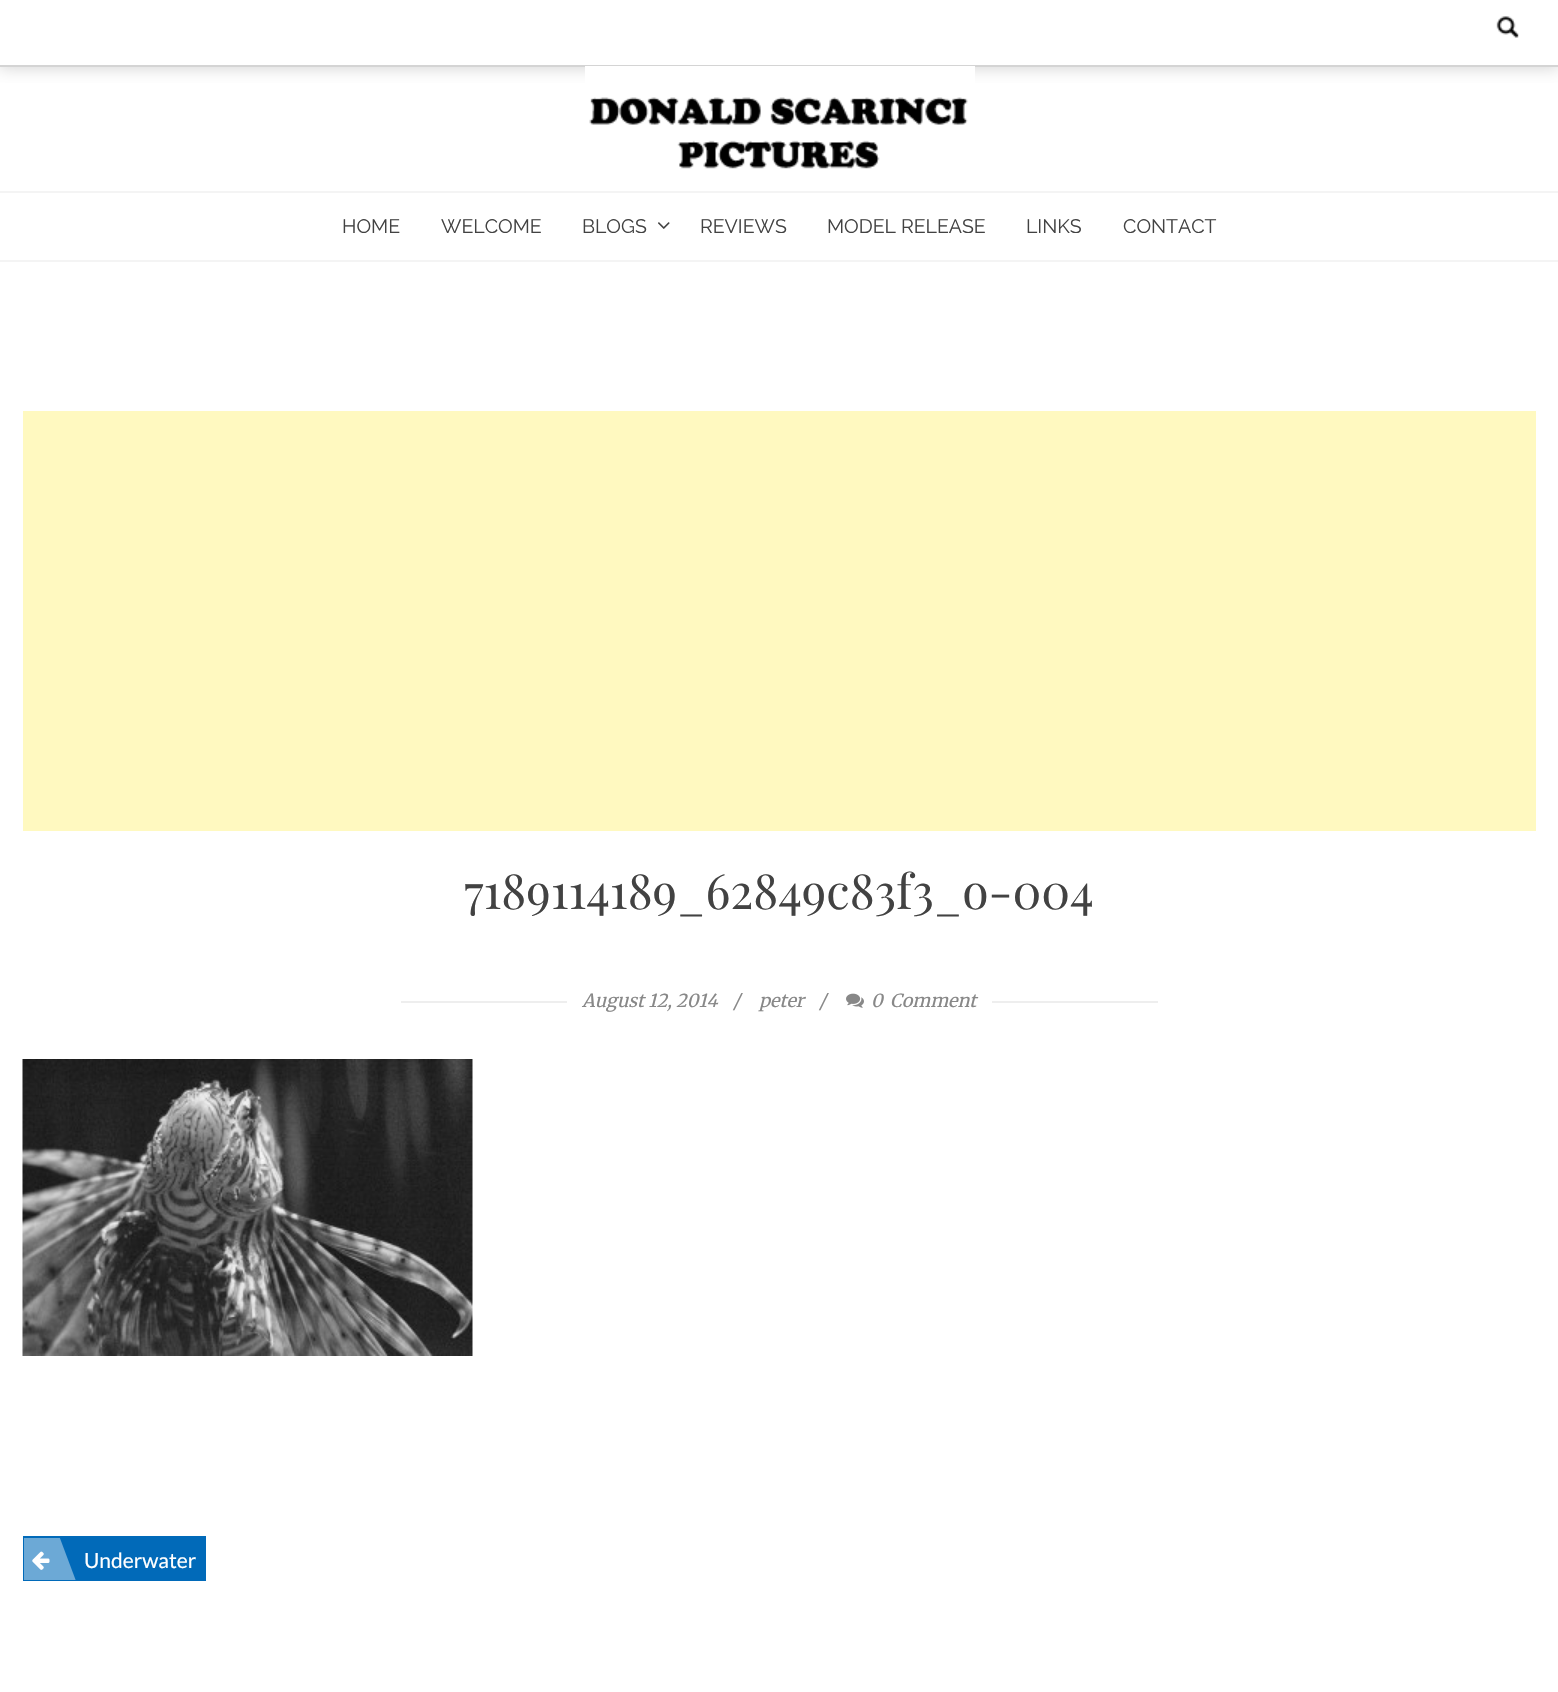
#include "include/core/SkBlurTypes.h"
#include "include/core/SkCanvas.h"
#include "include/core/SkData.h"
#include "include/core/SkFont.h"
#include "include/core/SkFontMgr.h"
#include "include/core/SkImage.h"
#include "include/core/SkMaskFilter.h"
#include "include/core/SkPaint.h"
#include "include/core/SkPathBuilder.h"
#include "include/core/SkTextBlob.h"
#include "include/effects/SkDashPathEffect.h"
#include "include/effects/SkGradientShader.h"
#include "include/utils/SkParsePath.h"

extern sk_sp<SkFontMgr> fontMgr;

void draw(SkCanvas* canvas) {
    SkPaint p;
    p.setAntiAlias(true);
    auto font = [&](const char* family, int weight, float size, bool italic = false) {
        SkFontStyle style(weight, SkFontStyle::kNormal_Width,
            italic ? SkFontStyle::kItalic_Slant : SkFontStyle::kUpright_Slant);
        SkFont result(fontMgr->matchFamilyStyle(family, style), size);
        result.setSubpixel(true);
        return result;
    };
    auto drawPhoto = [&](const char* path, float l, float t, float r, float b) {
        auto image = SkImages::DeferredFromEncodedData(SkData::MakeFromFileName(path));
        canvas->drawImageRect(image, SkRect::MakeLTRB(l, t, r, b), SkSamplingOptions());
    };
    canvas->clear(0xFFFFFFFF);
    canvas->save();
    canvas->clipRect(SkRect::MakeLTRB(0, 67, 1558, 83));
    p.setColor(0xFFD4D4D4);
    p.setMaskFilter(SkMaskFilter::MakeBlur(kNormal_SkBlurStyle, 7.5f));
    canvas->drawRect(SkRect::MakeLTRB(-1, -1, 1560, 68), p);
    p.setMaskFilter(nullptr);
    canvas->restore();
    canvas->drawRect(SkRect::MakeLTRB(0, 65, 1558, 67), p);
    drawPhoto("media/1.png", 1496, 16, 1519, 38);
    drawPhoto("media/2.png", 585, 66, 975, 169);
    p.setColor(0xFFF4F4F4);
    canvas->drawRect(SkRect::MakeLTRB(0, 191, 1558, 193), p);
    canvas->drawRect(SkRect::MakeLTRB(0, 260, 1558, 262), p);
    auto font1 = font("Raleway", 400, 19.5f);
    p.setColor(0xFF424242);
    {
        const struct { const char* s; float x, y; } items[] = {
            {"HOME", 342, 233},
            {"WELCOME", 441, 233},
            {"BLOGS", 582, 233},
        };
        for (auto [s, x, y] : items) {
            canvas->drawString(s, x, y, font1, p);
        }
    }
    drawPhoto("media/3.png", 658, 222, 670, 229);
    {
        const struct { const char* s; float x, y; } items[] = {
            {"REVIEWS", 700, 233},
            {"MODEL RELEASE", 827, 233},
            {"LINKS", 1026, 233},
            {"CONTACT", 1123, 233},
        };
        for (auto [s, x, y] : items) {
            canvas->drawString(s, x, y, font1, p);
        }
    }
    p.setColor(0xFFFFF9C0);
    canvas->drawRect(SkRect::MakeLTRB(23, 411, 1536, 831), p);
    auto font2 = font("Playfair Display", 400, 48);
    p.setColor(0xFF424242);
    canvas->drawString("7189114189_62849c83f3_o-004", 464, 909, font2, p);
    p.setColor(0xFFEEEEEE);
    canvas->drawRect(SkRect::MakeLTRB(401, 1001, 1158, 1003), p);
    p.setColor(0xFFFFFFFF);
    canvas->drawRect(SkRect::MakeLTRB(567, 1001, 992, 1003), p);
    auto font3 = font("Merriweather", 400, 18, true);
    p.setColor(0xFF888888);
    {
        const struct { const char* s; float x, y; } items[] = {
            {"August 12, 2014", 582, 1007},
            {"/", 733, 1007},
            {"peter", 759, 1007},
            {"/", 819, 1007},
        };
        for (auto [s, x, y] : items) {
            canvas->drawString(s, x, y, font3, p);
        }
    }
    drawPhoto("media/4.png", 846, 993, 864, 1008);
    canvas->drawString("0", 871, 1007, font3, p);
    canvas->drawString("Comment", 890, 1007, font3, p);
    drawPhoto("media/5.png", 22, 1059, 473, 1356);
    p.setColor(0xFF016AB9);
    canvas->drawRect(SkRect::MakeLTRB(23, 1536, 206, 1581), p);
    drawPhoto("media/6.png", 32, 1551, 50, 1570);
    canvas->save();
    canvas->clipRect(SkRect::MakeLTRB(24, 1538, 204, 1580));
    p.setColor(0x6BFFFFFF);
    canvas->drawPath(SkPathBuilder().moveTo(46, 1501).lineTo(88, 1613).lineTo(-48, 1663).lineTo(-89, 1550).close().detach(), p);
    canvas->restore();
    auto font4 = font("Lato", 400, 21);
    p.setColor(0xFFFFFFFF);
    canvas->drawString("Underwater", 84, 1568, font4, p);
}
